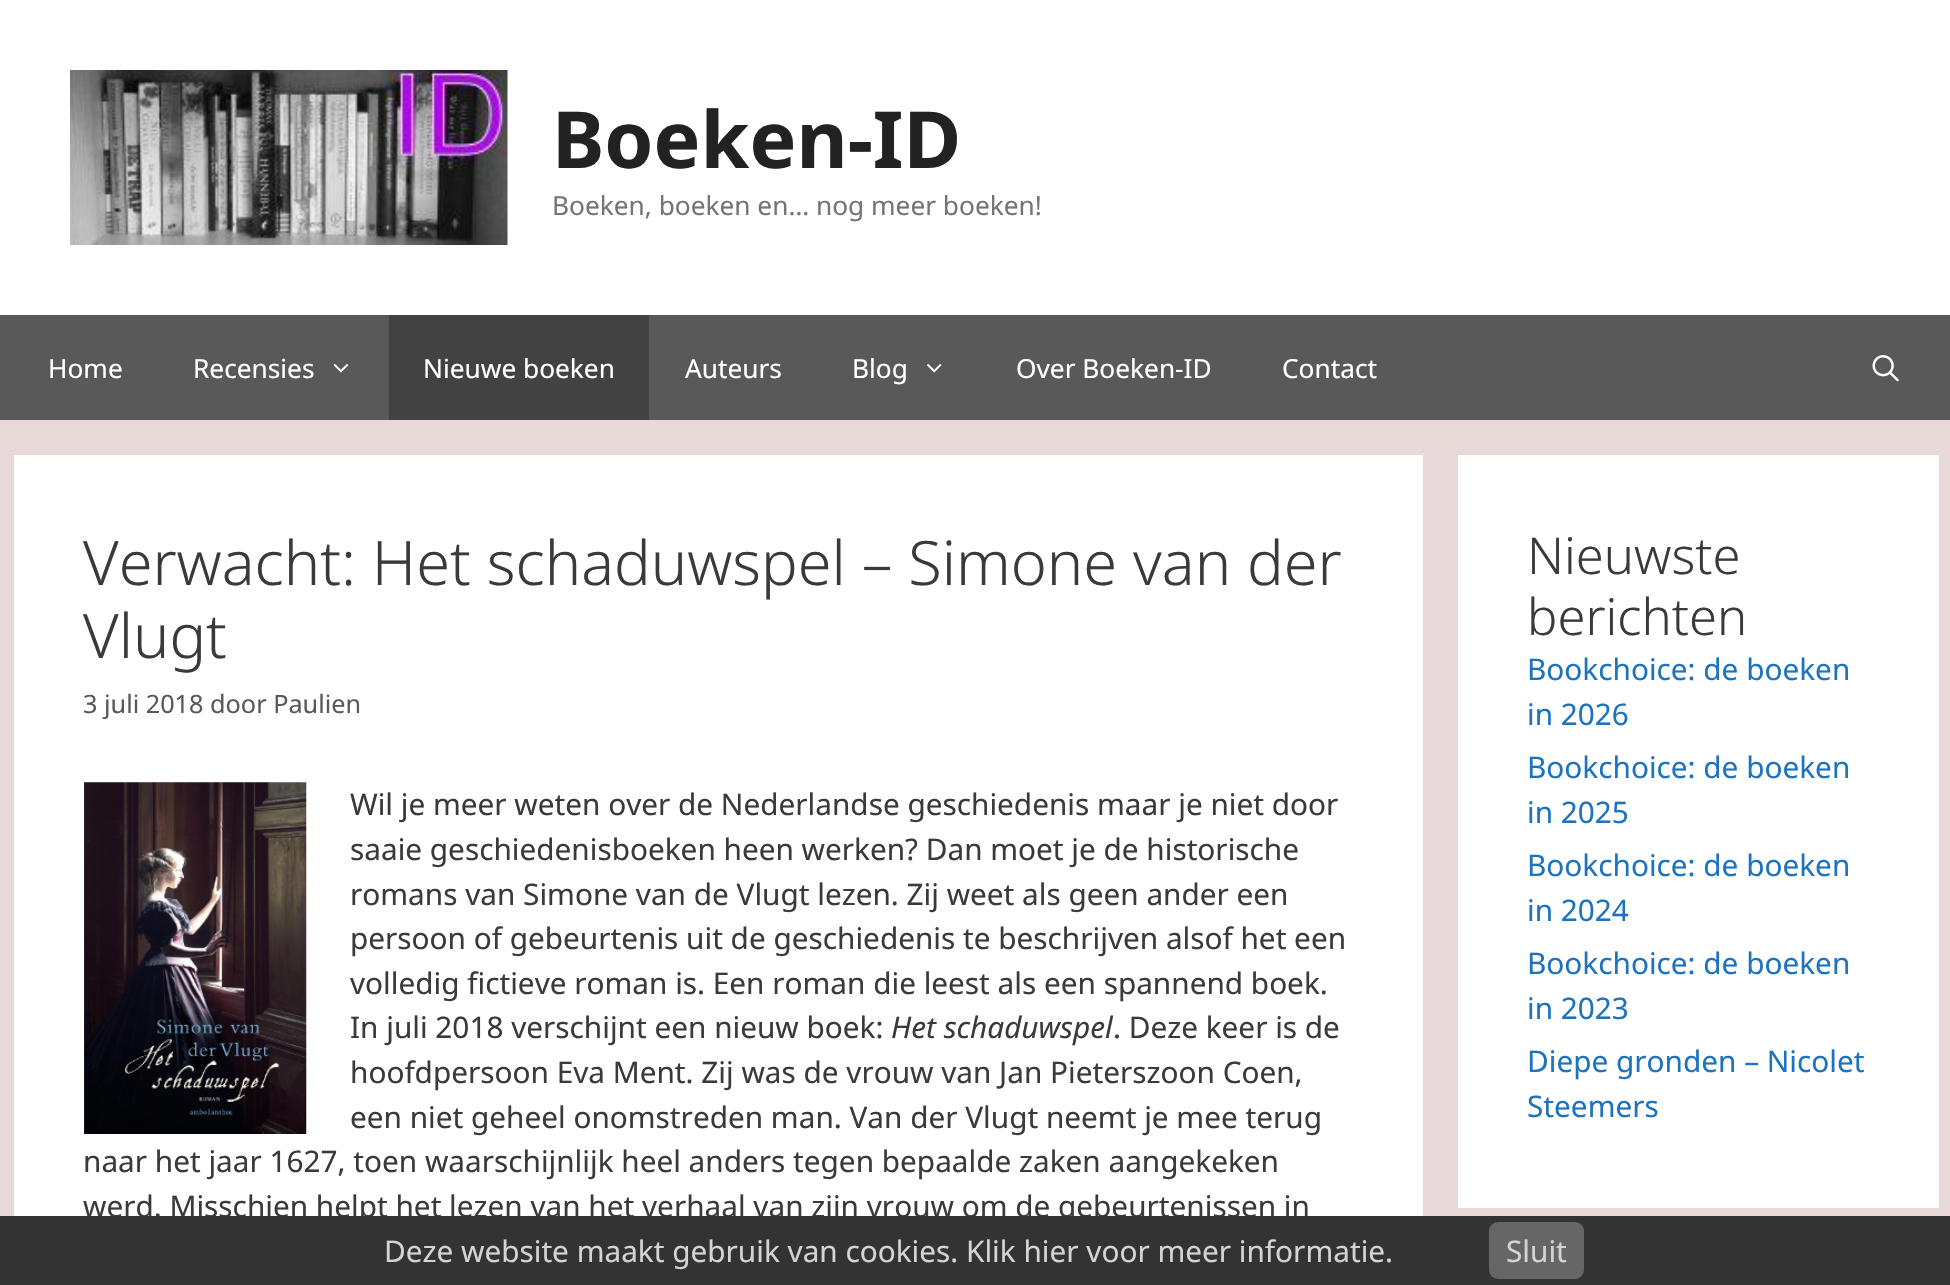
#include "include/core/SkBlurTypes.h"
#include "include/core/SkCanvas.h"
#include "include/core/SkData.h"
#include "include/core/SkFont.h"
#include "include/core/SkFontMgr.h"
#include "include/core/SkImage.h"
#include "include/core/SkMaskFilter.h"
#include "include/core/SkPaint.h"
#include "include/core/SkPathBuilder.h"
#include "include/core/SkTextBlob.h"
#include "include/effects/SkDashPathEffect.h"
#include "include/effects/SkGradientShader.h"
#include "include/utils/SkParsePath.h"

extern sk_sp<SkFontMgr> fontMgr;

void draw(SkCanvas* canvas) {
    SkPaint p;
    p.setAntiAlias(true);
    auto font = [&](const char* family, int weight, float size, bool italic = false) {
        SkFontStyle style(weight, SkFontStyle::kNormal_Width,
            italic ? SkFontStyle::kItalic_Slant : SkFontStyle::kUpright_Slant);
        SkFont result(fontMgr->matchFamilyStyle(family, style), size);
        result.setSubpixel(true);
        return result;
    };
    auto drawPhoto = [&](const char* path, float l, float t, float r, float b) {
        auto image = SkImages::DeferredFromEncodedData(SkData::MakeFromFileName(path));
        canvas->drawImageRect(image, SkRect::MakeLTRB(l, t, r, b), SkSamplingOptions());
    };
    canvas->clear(0xFFE8D8D7);
    p.setColor(0xFFFFFFFF);
    canvas->drawRect(SkRect::MakeLTRB(0, 0, 1950, 315), p);
    drawPhoto("media/1.png", 70, 70, 508, 245);
    auto font1 = font("Noto Sans", 700, 78.75f);
    p.setColor(0xFF222222);
    canvas->drawString("Boeken-ID", 552, 168, font1, p);
    auto font2 = font("Noto Sans", 400, 26.25f);
    p.setColor(0xFF757575);
    canvas->drawString("Boeken, boeken en… nog meer boeken!", 552, 215, font2, p);
    p.setColor(0xFF595959);
    canvas->drawRect(SkRect::MakeLTRB(0, 315, 1950, 420), p);
    p.setColor(0xFFFFFFFF);
    canvas->drawString("Home", 48, 378, font2, p);
    canvas->drawString("Recensies", 193, 378, font2, p);
    drawPhoto("media/2.png", 333, 364, 349, 373);
    p.setColor(0xFF424242);
    canvas->drawRect(SkRect::MakeLTRB(389, 315, 649, 420), p);
    p.setColor(0xFFFFFFFF);
    {
        const struct { const char* s; float x, y; } items[] = {
            {"Nieuwe boeken", 423, 378},
            {"Auteurs", 685, 378},
            {"Blog", 852, 378},
        };
        for (auto [s, x, y] : items) {
            canvas->drawString(s, x, y, font2, p);
        }
    }
    drawPhoto("media/3.png", 927, 364, 942, 373);
    canvas->drawString("Over Boeken-ID", 1016, 378, font2, p);
    canvas->drawString("Contact", 1282, 378, font2, p);
    drawPhoto("media/4.png", 1872, 355, 1899, 382);
    canvas->drawRect(SkRect::MakeLTRB(14, 455, 1423, 1216), p);
    auto font3 = font("Noto Sans", 300, 61.25f);
    p.setColor(0xFF3A3A3A);
    canvas->drawString("Verwacht: Het schaduwspel – Simone van der", 83, 585, font3, p);
    canvas->drawString("Vlugt", 83, 658, font3, p);
    auto font4 = font("Noto Sans", 400, 25.25f);
    p.setColor(0xFF595959);
    canvas->drawString("3 juli 2018 door Paulien", 83, 713, font4, p);
    drawPhoto("media/5.png", 84, 782, 307, 1134);
    auto font5 = font("Noto Sans", 400, 29.75f);
    p.setColor(0xFF3A3A3A);
    {
        const struct { const char* s; float x, y; } items[] = {
            {"Wil je meer weten over de Nederlandse geschiedenis maar je niet door", 350, 815},
            {"saaie geschiedenisboeken heen werken? Dan moet je de historische", 350, 860},
            {"romans van Simone van de Vlugt lezen. Zij weet als geen ander een", 350, 905},
            {"persoon of gebeurtenis uit de geschiedenis te beschrijven alsof het een", 350, 949},
            {"volledig fictieve roman is. Een roman die leest als een spannend boek.", 350, 994},
            {"In juli 2018 verschijnt een nieuw boek:", 350, 1038},
        };
        for (auto [s, x, y] : items) {
            canvas->drawString(s, x, y, font5, p);
        }
    }
    auto font6 = font("Noto Sans", 400, 29.75f, true);
    canvas->drawString("Het schaduwspel", 891, 1038, font6, p);
    {
        const struct { const char* s; float x, y; } items[] = {
            {". Deze keer is de", 1113, 1038},
            {"hoofdpersoon Eva Ment. Zij was de vrouw van Jan Pieterszoon Coen,", 350, 1083},
            {"een niet geheel onomstreden man. Van der Vlugt neemt je mee terug", 350, 1128},
            {"naar het jaar 1627, toen waarschijnlijk heel anders tegen bepaalde zaken aangekeken", 83, 1172},
            {"werd. Misschien helpt het lezen van het verhaal van zijn vrouw om de gebeurtenissen in", 83, 1217},
        };
        for (auto [s, x, y] : items) {
            canvas->drawString(s, x, y, font5, p);
        }
    }
    p.setColor(0xFFFFFFFF);
    canvas->drawRect(SkRect::MakeLTRB(1458, 455, 1939, 1208), p);
    auto font7 = font("Noto Sans", 300, 50.75f);
    p.setColor(0xFF3A3A3A);
    canvas->drawString("Nieuwste", 1527, 574, font7, p);
    canvas->drawString("berichten", 1527, 635, font7, p);
    p.setColor(0xFF1E73BE);
    {
        const struct { const char* s; float x, y; } items[] = {
            {"Bookchoice: de boeken", 1527, 680},
            {"in 2026", 1527, 725},
            {"Bookchoice: de boeken", 1527, 778},
            {"in 2025", 1527, 823},
            {"Bookchoice: de boeken", 1527, 876},
            {"in 2024", 1527, 921},
            {"Bookchoice: de boeken", 1527, 974},
            {"in 2023", 1527, 1019},
            {"Diepe gronden – Nicolet", 1527, 1072},
            {"Steemers", 1527, 1117},
        };
        for (auto [s, x, y] : items) {
            canvas->drawString(s, x, y, font5, p);
        }
    }
    p.setColor(0xFF333333);
    canvas->drawRect(SkRect::MakeLTRB(0, 1216, 1950, 1285), p);
    p.setColor(0xFFD4D4D4);
    canvas->drawString("Deze website maakt gebruik van cookies. Klik hier voor meer informatie.", 384, 1262, font5, p);
    p.setColor(0xFF666666);
    canvas->drawRoundRect(SkRect::MakeLTRB(1489, 1222, 1584, 1279), 9, 9, p);
    p.setColor(0xFFD4D4D4);
    canvas->drawString("Sluit", 1506, 1262, font5, p);
}
